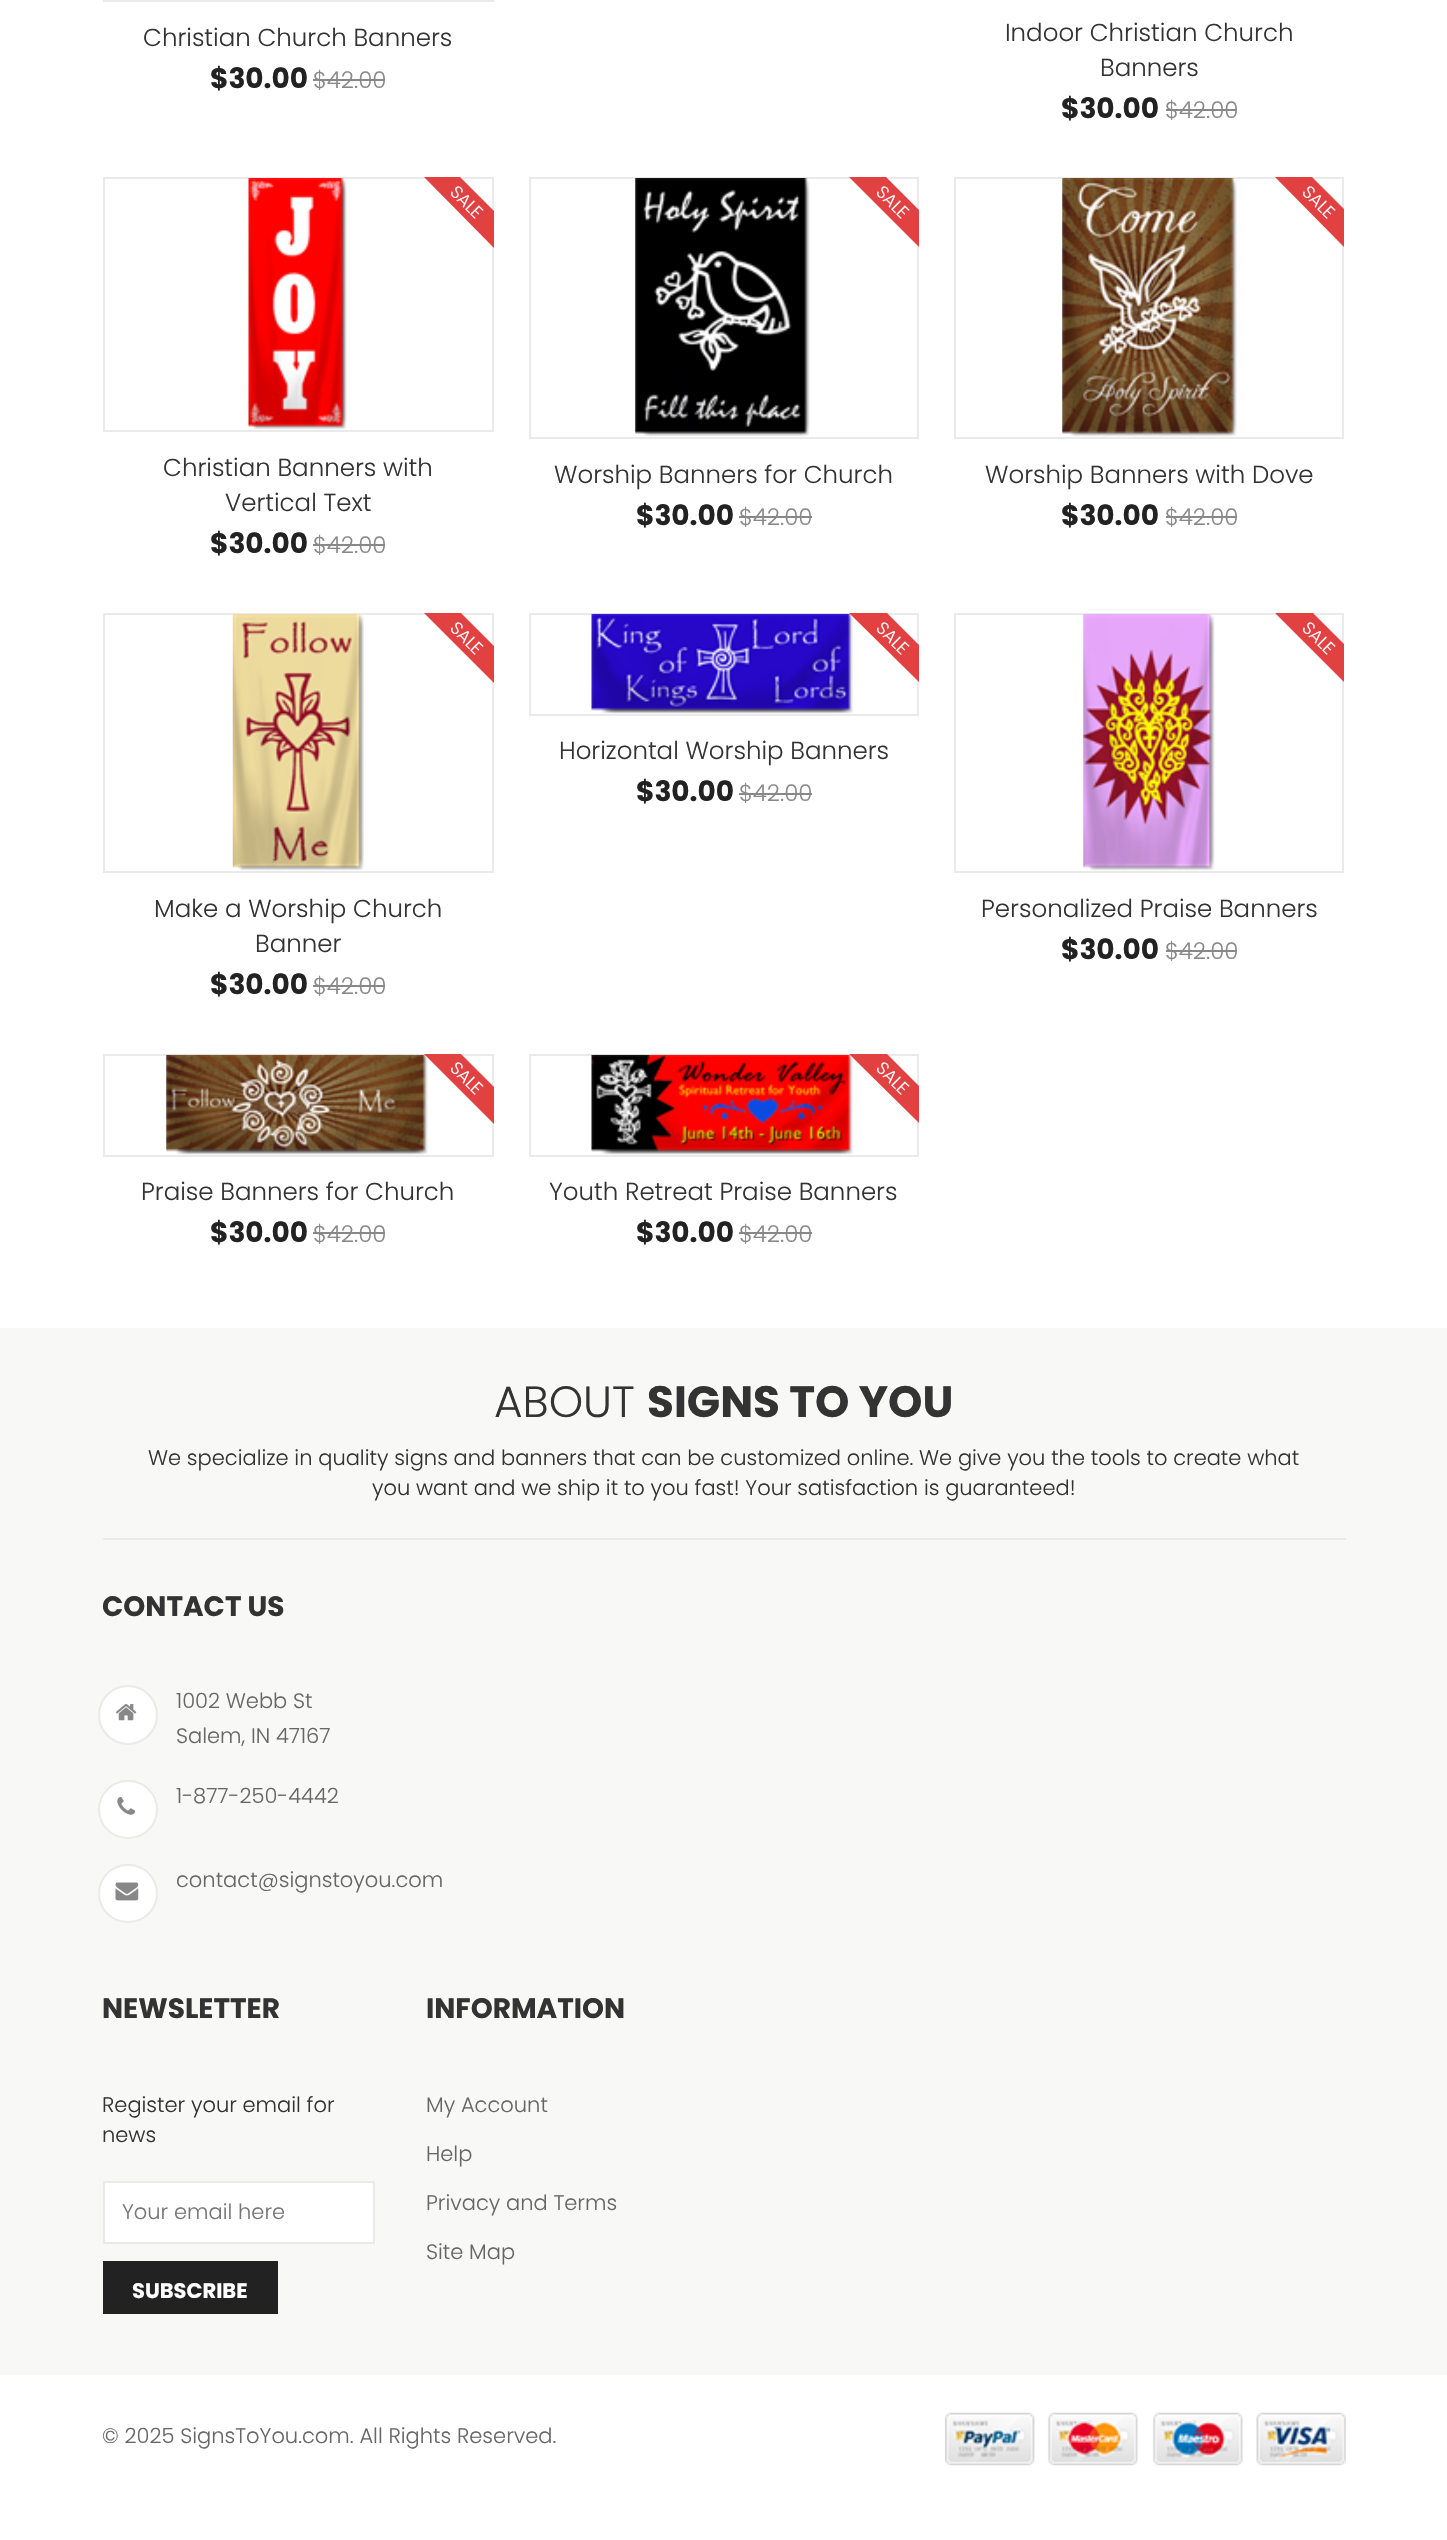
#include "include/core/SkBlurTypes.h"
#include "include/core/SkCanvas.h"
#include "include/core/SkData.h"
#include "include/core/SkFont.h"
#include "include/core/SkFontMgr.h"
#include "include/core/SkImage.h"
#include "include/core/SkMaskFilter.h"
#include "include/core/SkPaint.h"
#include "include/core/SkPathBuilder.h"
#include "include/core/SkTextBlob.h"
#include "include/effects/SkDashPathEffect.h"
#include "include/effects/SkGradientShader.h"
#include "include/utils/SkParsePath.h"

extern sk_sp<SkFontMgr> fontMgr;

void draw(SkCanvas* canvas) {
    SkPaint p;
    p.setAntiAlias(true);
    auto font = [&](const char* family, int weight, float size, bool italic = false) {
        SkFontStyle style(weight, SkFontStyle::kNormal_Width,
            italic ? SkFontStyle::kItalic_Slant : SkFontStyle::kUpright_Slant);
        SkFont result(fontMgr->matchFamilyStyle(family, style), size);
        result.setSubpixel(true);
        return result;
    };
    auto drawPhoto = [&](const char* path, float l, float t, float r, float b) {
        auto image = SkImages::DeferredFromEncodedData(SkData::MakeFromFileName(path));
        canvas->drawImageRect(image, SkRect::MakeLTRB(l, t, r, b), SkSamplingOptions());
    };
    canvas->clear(0xFFFFFFFF);
    p.setStyle(SkPaint::kStroke_Style);
    p.setStrokeWidth(2);
    p.setColor(0xFFEAEAEA);
    canvas->drawRect(SkRect::MakeLTRB(104, -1, 493, 1), p);
    auto font1 = font("Poppins", 300, 24.5f);
    p.setStyle(SkPaint::kFill_Style);
    p.setColor(0xFF333333);
    canvas->drawString("Christian Church Banners", 143, 46, font1, p);
    auto font2 = font("Poppins", 700, 28);
    p.setColor(0xFF222222);
    canvas->drawString("$30.00", 210, 88, font2, p);
    auto font3 = font("Poppins", 300, 23);
    p.setColor(0xFF888888);
    canvas->drawString("$42.00", 313, 88, font3, p);
    canvas->drawRect(SkRect::MakeLTRB(313, 79, 385, 81), p);
    p.setColor(0xFF333333);
    canvas->drawString("Indoor Christian Church", 1005, 41, font1, p);
    canvas->drawString("Banners", 1100, 76, font1, p);
    p.setColor(0xFF222222);
    canvas->drawString("$30.00", 1061, 118, font2, p);
    p.setColor(0xFF888888);
    canvas->drawString("$42.00", 1165, 118, font3, p);
    canvas->drawRect(SkRect::MakeLTRB(1166, 109, 1237, 111), p);
    p.setStyle(SkPaint::kStroke_Style);
    p.setColor(0xFFEAEAEA);
    canvas->drawRect(SkRect::MakeLTRB(104, 178, 493, 431), p);
    drawPhoto("media/1.png", 248, 178, 347, 430);
    canvas->save();
    canvas->clipRect(SkRect::MakeLTRB(103, 177, 494, 592));
    p.setStyle(SkPaint::kFill_Style);
    p.setColor(0xFFE14141);
    canvas->drawPath(SkPathBuilder().moveTo(439, 156).lineTo(513, 230).lineTo(495, 249).lineTo(421, 174).close().detach(), p);
    canvas->restore();
    auto font4 = font("Poppins", 300, 17.5f);
    p.setColor(0xFFFFFFFF);
    canvas->save();
    canvas->rotate(45, 449, 193);
    canvas->drawString("SALE", 449, 193, font4, p);
    canvas->restore();
    p.setColor(0xFF333333);
    canvas->drawString("Christian Banners with", 163, 476, font1, p);
    canvas->drawString("Vertical Text", 225, 511, font1, p);
    p.setColor(0xFF222222);
    canvas->drawString("$30.00", 210, 553, font2, p);
    p.setColor(0xFF888888);
    canvas->drawString("$42.00", 313, 553, font3, p);
    canvas->drawRect(SkRect::MakeLTRB(313, 544, 385, 546), p);
    p.setStyle(SkPaint::kStroke_Style);
    p.setColor(0xFFEAEAEA);
    canvas->drawRect(SkRect::MakeLTRB(530, 178, 918, 438), p);
    drawPhoto("media/2.png", 635, 178, 810, 437);
    canvas->save();
    canvas->clipRect(SkRect::MakeLTRB(529, 177, 919, 564));
    p.setStyle(SkPaint::kFill_Style);
    p.setColor(0xFFE14141);
    canvas->drawPath(SkPathBuilder().moveTo(865, 156).lineTo(939, 230).lineTo(921, 249).lineTo(846, 174).close().detach(), p);
    canvas->restore();
    p.setColor(0xFFFFFFFF);
    canvas->save();
    canvas->rotate(45, 875, 193);
    canvas->drawString("SALE", 875, 193, font4, p);
    canvas->restore();
    p.setColor(0xFF333333);
    canvas->drawString("Worship Banners for Church", 554, 483, font1, p);
    p.setColor(0xFF222222);
    canvas->drawString("$30.00", 636, 525, font2, p);
    p.setColor(0xFF888888);
    canvas->drawString("$42.00", 739, 525, font3, p);
    canvas->drawRect(SkRect::MakeLTRB(739, 516, 812, 518), p);
    p.setStyle(SkPaint::kStroke_Style);
    p.setColor(0xFFEAEAEA);
    canvas->drawRect(SkRect::MakeLTRB(955, 178, 1343, 438), p);
    drawPhoto("media/3.png", 1062, 178, 1237, 437);
    canvas->save();
    canvas->clipRect(SkRect::MakeLTRB(954, 177, 1344, 564));
    p.setStyle(SkPaint::kFill_Style);
    p.setColor(0xFFE14141);
    canvas->drawPath(SkPathBuilder().moveTo(1291, 156).lineTo(1365, 230).lineTo(1346, 249).lineTo(1272, 174).close().detach(), p);
    canvas->restore();
    p.setColor(0xFFFFFFFF);
    canvas->save();
    canvas->rotate(45, 1301, 193);
    canvas->drawString("SALE", 1301, 193, font4, p);
    canvas->restore();
    p.setColor(0xFF333333);
    canvas->drawString("Worship Banners with Dove", 985, 483, font1, p);
    p.setColor(0xFF222222);
    canvas->drawString("$30.00", 1061, 525, font2, p);
    p.setColor(0xFF888888);
    canvas->drawString("$42.00", 1165, 525, font3, p);
    canvas->drawRect(SkRect::MakeLTRB(1166, 516, 1237, 518), p);
    p.setStyle(SkPaint::kStroke_Style);
    p.setColor(0xFFEAEAEA);
    canvas->drawRect(SkRect::MakeLTRB(104, 614, 493, 872), p);
    drawPhoto("media/4.png", 232, 613, 364, 871);
    canvas->save();
    canvas->clipRect(SkRect::MakeLTRB(103, 613, 494, 1033));
    p.setStyle(SkPaint::kFill_Style);
    p.setColor(0xFFE14141);
    canvas->drawPath(SkPathBuilder().moveTo(439, 591).lineTo(513, 665).lineTo(495, 684).lineTo(421, 610).close().detach(), p);
    canvas->restore();
    p.setColor(0xFFFFFFFF);
    canvas->save();
    canvas->rotate(45, 449, 629);
    canvas->drawString("SALE", 449, 629, font4, p);
    canvas->restore();
    p.setColor(0xFF333333);
    canvas->drawString("Make a Worship Church", 154, 917, font1, p);
    canvas->drawString("Banner", 255, 952, font1, p);
    p.setColor(0xFF222222);
    canvas->drawString("$30.00", 210, 994, font2, p);
    p.setColor(0xFF888888);
    canvas->drawString("$42.00", 313, 994, font3, p);
    canvas->drawRect(SkRect::MakeLTRB(313, 985, 385, 987), p);
    p.setStyle(SkPaint::kStroke_Style);
    p.setColor(0xFFEAEAEA);
    canvas->drawRect(SkRect::MakeLTRB(530, 614, 918, 715), p);
    drawPhoto("media/5.png", 591, 613, 854, 714);
    canvas->save();
    canvas->clipRect(SkRect::MakeLTRB(529, 613, 919, 840));
    p.setStyle(SkPaint::kFill_Style);
    p.setColor(0xFFE14141);
    canvas->drawPath(SkPathBuilder().moveTo(865, 591).lineTo(939, 665).lineTo(921, 684).lineTo(846, 610).close().detach(), p);
    canvas->restore();
    p.setColor(0xFFFFFFFF);
    canvas->save();
    canvas->rotate(45, 875, 629);
    canvas->drawString("SALE", 875, 629, font4, p);
    canvas->restore();
    p.setColor(0xFF333333);
    canvas->drawString("Horizontal Worship Banners", 559, 759, font1, p);
    p.setColor(0xFF222222);
    canvas->drawString("$30.00", 636, 801, font2, p);
    p.setColor(0xFF888888);
    canvas->drawString("$42.00", 739, 801, font3, p);
    canvas->drawRect(SkRect::MakeLTRB(739, 793, 812, 795), p);
    p.setStyle(SkPaint::kStroke_Style);
    p.setColor(0xFFEAEAEA);
    canvas->drawRect(SkRect::MakeLTRB(955, 614, 1343, 872), p);
    drawPhoto("media/6.png", 1083, 614, 1215, 871);
    canvas->save();
    canvas->clipRect(SkRect::MakeLTRB(954, 613, 1344, 998));
    p.setStyle(SkPaint::kFill_Style);
    p.setColor(0xFFE14141);
    canvas->drawPath(SkPathBuilder().moveTo(1291, 591).lineTo(1365, 665).lineTo(1346, 684).lineTo(1272, 610).close().detach(), p);
    canvas->restore();
    p.setColor(0xFFFFFFFF);
    canvas->save();
    canvas->rotate(45, 1301, 629);
    canvas->drawString("SALE", 1301, 629, font4, p);
    canvas->restore();
    p.setColor(0xFF333333);
    canvas->drawString("Personalized Praise Banners", 981, 917, font1, p);
    p.setColor(0xFF222222);
    canvas->drawString("$30.00", 1061, 959, font2, p);
    p.setColor(0xFF888888);
    canvas->drawString("$42.00", 1165, 959, font3, p);
    canvas->drawRect(SkRect::MakeLTRB(1166, 950, 1237, 952), p);
    p.setStyle(SkPaint::kStroke_Style);
    p.setColor(0xFFEAEAEA);
    canvas->drawRect(SkRect::MakeLTRB(104, 1055, 493, 1156), p);
    drawPhoto("media/7.png", 166, 1054, 428, 1155);
    canvas->save();
    canvas->clipRect(SkRect::MakeLTRB(103, 1054, 494, 1281));
    p.setStyle(SkPaint::kFill_Style);
    p.setColor(0xFFE14141);
    canvas->drawPath(SkPathBuilder().moveTo(439, 1032).lineTo(513, 1106).lineTo(495, 1125).lineTo(421, 1051).close().detach(), p);
    canvas->restore();
    p.setColor(0xFFFFFFFF);
    canvas->save();
    canvas->rotate(45, 449, 1069);
    canvas->drawString("SALE", 449, 1069, font4, p);
    canvas->restore();
    p.setColor(0xFF333333);
    canvas->drawString("Praise Banners for Church", 141, 1200, font1, p);
    p.setColor(0xFF222222);
    canvas->drawString("$30.00", 210, 1242, font2, p);
    p.setColor(0xFF888888);
    canvas->drawString("$42.00", 313, 1242, font3, p);
    canvas->drawRect(SkRect::MakeLTRB(313, 1232, 385, 1234), p);
    p.setStyle(SkPaint::kStroke_Style);
    p.setColor(0xFFEAEAEA);
    canvas->drawRect(SkRect::MakeLTRB(530, 1055, 918, 1156), p);
    drawPhoto("media/8.png", 591, 1054, 854, 1155);
    canvas->save();
    canvas->clipRect(SkRect::MakeLTRB(529, 1054, 919, 1281));
    p.setStyle(SkPaint::kFill_Style);
    p.setColor(0xFFE14141);
    canvas->drawPath(SkPathBuilder().moveTo(865, 1032).lineTo(939, 1106).lineTo(921, 1125).lineTo(846, 1051).close().detach(), p);
    canvas->restore();
    p.setColor(0xFFFFFFFF);
    canvas->save();
    canvas->rotate(45, 875, 1069);
    canvas->drawString("SALE", 875, 1069, font4, p);
    canvas->restore();
    p.setColor(0xFF333333);
    canvas->drawString("Youth Retreat Praise Banners", 549, 1200, font1, p);
    p.setColor(0xFF222222);
    canvas->drawString("$30.00", 636, 1242, font2, p);
    p.setColor(0xFF888888);
    canvas->drawString("$42.00", 739, 1242, font3, p);
    {
        const struct { float l, t, r, b; SkColor color; } items[] = {
            {739, 1232, 812, 1234, 0xFF888888},
            {0, 1328, 1447, 2375, 0xFFF8F8F6},
            {103, 1538, 1346, 1540, 0xFFEAEAEA},
        };
        for (auto [l, t, r, b, color] : items) {
            p.setColor(color);
            canvas->drawRect(SkRect::MakeLTRB(l, t, r, b), p);
        }
    }
    auto font5 = font("Poppins", 300, 43.75f);
    p.setColor(0xFF333333);
    canvas->drawString("ABOUT", 494, 1417, font5, p);
    auto font6 = font("Poppins", 700, 43.75f);
    canvas->drawString("SIGNS TO YOU", 647, 1417, font6, p);
    auto font7 = font("Poppins", 300, 21);
    canvas->drawString("We specialize in quality signs and banners that can be customized online. We give you the tools to create what", 148, 1465, font7, p);
    canvas->drawString("you want and we ship it to you fast! Your satisfaction is guaranteed!", 372, 1495, font7, p);
    canvas->drawString("CONTACT US", 102, 1616, font2, p);
    p.setColor(0xFFFFFFFF);
    canvas->drawCircle(128, 1715, 29, p);
    p.setStyle(SkPaint::kStroke_Style);
    p.setColor(0xFFEAEAEA);
    canvas->drawCircle(128, 1715, 29, p);
    drawPhoto("media/9.png", 115, 1704, 137, 1721);
    p.setStyle(SkPaint::kFill_Style);
    p.setColor(0xFF666666);
    canvas->drawString("1002 Webb St", 176, 1708, font7, p);
    canvas->drawString("Salem, IN 47167", 176, 1743, font7, p);
    p.setColor(0xFFFFFFFF);
    canvas->drawRoundRect(SkRect::MakeLTRB(99, 1781, 157, 1838), 28.5f, 28.5f, p);
    p.setStyle(SkPaint::kStroke_Style);
    p.setColor(0xFFEAEAEA);
    canvas->drawRoundRect(SkRect::MakeLTRB(99, 1781, 157, 1838), 28.5f, 28.5f, p);
    drawPhoto("media/10.png", 117, 1796, 136, 1815);
    p.setStyle(SkPaint::kFill_Style);
    p.setColor(0xFF666666);
    canvas->drawString("1-877-250-4442", 176, 1803, font7, p);
    p.setColor(0xFFFFFFFF);
    canvas->drawRoundRect(SkRect::MakeLTRB(99, 1865, 157, 1922), 28.5f, 28.5f, p);
    p.setStyle(SkPaint::kStroke_Style);
    p.setColor(0xFFEAEAEA);
    canvas->drawRoundRect(SkRect::MakeLTRB(99, 1865, 157, 1922), 28.5f, 28.5f, p);
    drawPhoto("media/11.png", 115, 1882, 139, 1901);
    p.setStyle(SkPaint::kFill_Style);
    p.setColor(0xFF666666);
    canvas->drawString("contact@signstoyou.com", 176, 1887, font7, p);
    p.setColor(0xFF333333);
    canvas->drawString("NEWSLETTER", 102, 2018, font2, p);
    canvas->drawString("Register your email for", 102, 2112, font7, p);
    canvas->drawString("news", 102, 2142, font7, p);
    p.setColor(0xFFFFFFFF);
    canvas->drawRect(SkRect::MakeLTRB(104, 2182, 374, 2243), p);
    p.setStyle(SkPaint::kStroke_Style);
    p.setColor(0xFFEAEAEA);
    canvas->drawRect(SkRect::MakeLTRB(104, 2182, 374, 2243), p);
    p.setStyle(SkPaint::kFill_Style);
    p.setColor(0xFF757575);
    canvas->drawString("Your email here", 122, 2219, font7, p);
    p.setColor(0xFF222222);
    canvas->drawRect(SkRect::MakeLTRB(103, 2261, 278, 2314), p);
    auto font8 = font("Poppins", 700, 21);
    p.setColor(0xFFFFFFFF);
    canvas->drawString("SUBSCRIBE", 132, 2298, font8, p);
    p.setColor(0xFF333333);
    canvas->drawString("INFORMATION", 426, 2018, font2, p);
    p.setColor(0xFF666666);
    {
        const struct { const char* s; float x, y; } items[] = {
            {"My Account", 426, 2112},
            {"Help", 426, 2161},
            {"Privacy and Terms", 426, 2210},
            {"Site Map", 426, 2259},
            {"© 2025 SignsToYou.com. All Rights Reserved.", 102, 2443},
        };
        for (auto [s, x, y] : items) {
            canvas->drawString(s, x, y, font7, p);
        }
    }
    drawPhoto("media/12.png", 945, 2412, 1346, 2466);
}
